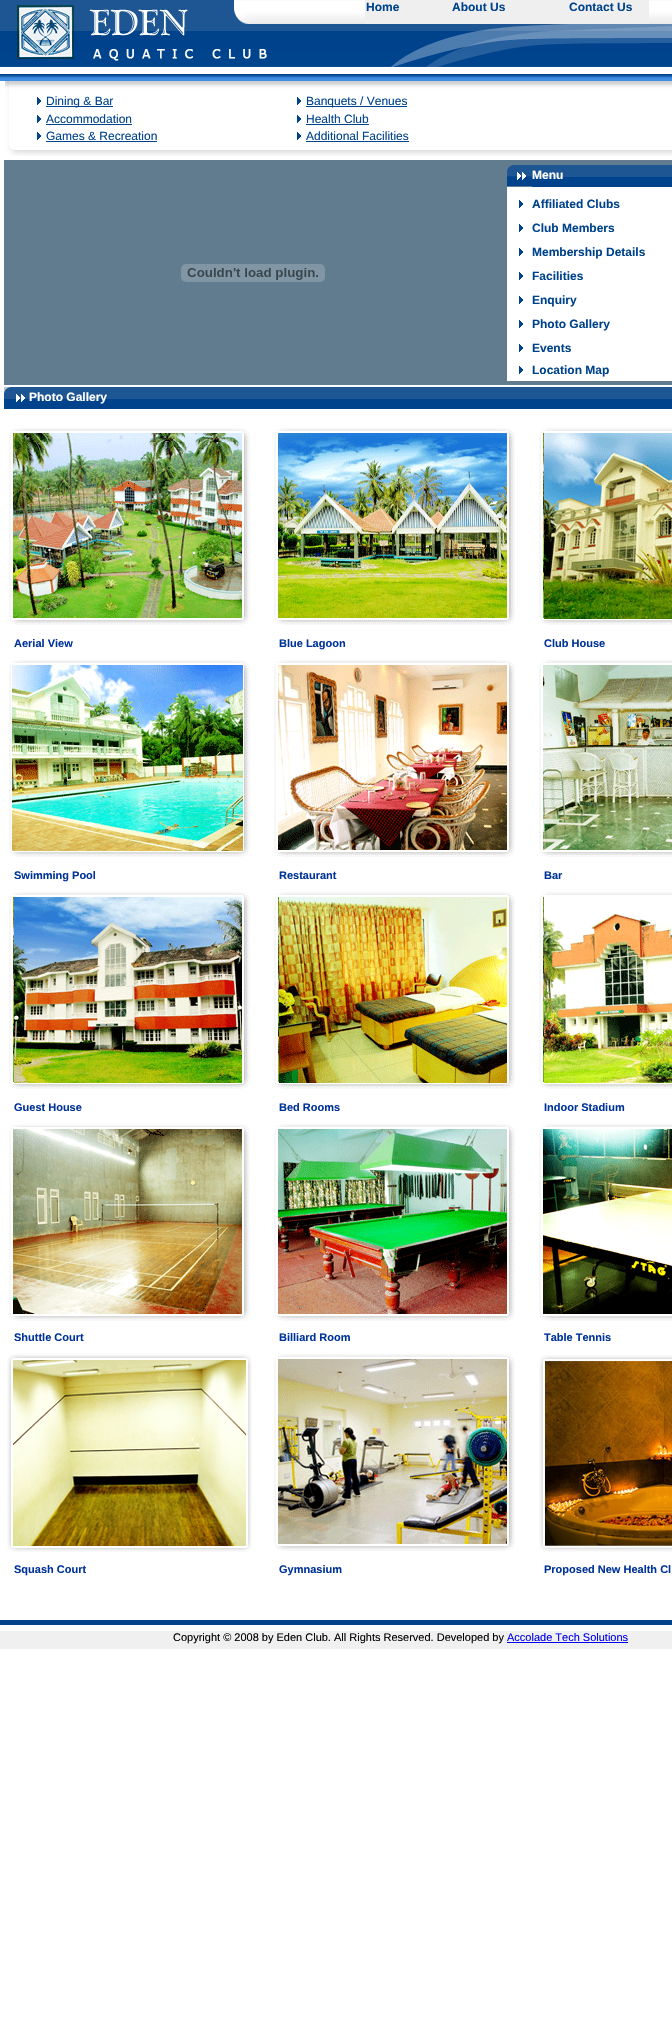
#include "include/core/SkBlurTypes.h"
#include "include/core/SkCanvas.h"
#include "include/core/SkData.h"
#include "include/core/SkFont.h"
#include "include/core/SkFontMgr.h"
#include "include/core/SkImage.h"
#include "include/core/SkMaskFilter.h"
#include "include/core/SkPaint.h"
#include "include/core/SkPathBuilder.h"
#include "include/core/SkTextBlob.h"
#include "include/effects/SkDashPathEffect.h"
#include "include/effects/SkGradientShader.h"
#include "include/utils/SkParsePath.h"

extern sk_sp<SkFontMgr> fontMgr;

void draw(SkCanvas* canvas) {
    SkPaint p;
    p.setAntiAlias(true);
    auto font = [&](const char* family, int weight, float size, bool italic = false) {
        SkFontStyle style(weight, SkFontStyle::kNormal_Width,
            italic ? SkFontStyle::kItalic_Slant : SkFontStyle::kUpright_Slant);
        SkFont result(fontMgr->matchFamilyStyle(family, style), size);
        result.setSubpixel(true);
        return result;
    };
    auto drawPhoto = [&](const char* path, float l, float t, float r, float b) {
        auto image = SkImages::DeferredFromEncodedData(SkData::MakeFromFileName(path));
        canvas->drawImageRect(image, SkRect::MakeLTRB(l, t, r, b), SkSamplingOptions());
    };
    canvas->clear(0xFFFFFFFF);
    drawPhoto("media/1.png", 0, 0, 194, 67);
    p.setColor(0xFFEFEFEF);
    canvas->drawRect(SkRect::MakeLTRB(365, 0, 649, 24), p);
    drawPhoto("media/2.png", 194, 0, 365, 24);
    auto font1 = font("Liberation Sans", 700, 12);
    p.setColor(0xFF00438D);
    {
        const struct { const char* s; float x, y; } items[] = {
            {"Home", 366, 11},
            {"About Us", 452, 11},
            {"Contact Us", 569, 11},
        };
        for (auto [s, x, y] : items) {
            canvas->drawString(s, x, y, font1, p);
        }
    }
    drawPhoto("media/3.png", 649, 0, 672, 24);
    drawPhoto("media/4.png", 194, 24, 672, 67);
    drawPhoto("media/5.png", 0, 74, 672, 81);
    drawPhoto("media/6.png", 5, 81, 672, 156);
    drawPhoto("media/7.png", 37, 97, 41, 105);
    canvas->drawRect(SkRect::MakeLTRB(46, 106, 113, 107), p);
    auto font2 = font("Liberation Sans", 400, 12);
    canvas->drawString("Dining & Bar", 46, 105, font2, p);
    drawPhoto("media/7.png", 37, 115, 41, 123);
    canvas->drawString("Accommodation", 46, 123, font2, p);
    canvas->drawRect(SkRect::MakeLTRB(46, 124, 132, 125), p);
    drawPhoto("media/7.png", 37, 132, 41, 140);
    canvas->drawString("Games & Recreation", 46, 140, font2, p);
    canvas->drawRect(SkRect::MakeLTRB(46, 141, 157, 142), p);
    drawPhoto("media/7.png", 297, 97, 301, 105);
    canvas->drawRect(SkRect::MakeLTRB(306, 106, 407, 107), p);
    canvas->drawString("Banquets / Venues", 306, 105, font2, p);
    drawPhoto("media/7.png", 297, 115, 301, 123);
    canvas->drawString("Health Club", 306, 123, font2, p);
    canvas->drawRect(SkRect::MakeLTRB(306, 124, 369, 125), p);
    drawPhoto("media/7.png", 297, 132, 301, 140);
    canvas->drawString("Additional Facilities", 306, 140, font2, p);
    canvas->drawRect(SkRect::MakeLTRB(306, 141, 409, 142), p);
    p.setColor(0xFF607C8E);
    canvas->drawRect(SkRect::MakeLTRB(4, 160, 672, 385), p);
    drawPhoto("media/8.png", 181, 264, 325, 282);
    p.setColor(0xFFFFFFFF);
    canvas->drawRect(SkRect::MakeLTRB(507, 187, 672, 381), p);
    drawPhoto("media/9.png", 507, 165, 532, 186);
    drawPhoto("media/10.png", 532, 165, 672, 187);
    canvas->drawString("Menu", 532, 179, font1, p);
    drawPhoto("media/7.png", 519, 200, 523, 208);
    p.setColor(0xFF00438D);
    canvas->drawString("Affiliated Clubs", 532, 208, font1, p);
    drawPhoto("media/7.png", 519, 224, 523, 232);
    canvas->drawString("Club Members", 532, 232, font1, p);
    drawPhoto("media/7.png", 519, 248, 523, 256);
    canvas->drawString("Membership Details", 532, 256, font1, p);
    drawPhoto("media/7.png", 519, 272, 523, 280);
    canvas->drawString("Facilities", 532, 280, font1, p);
    drawPhoto("media/7.png", 519, 296, 523, 304);
    canvas->drawString("Enquiry", 532, 304, font1, p);
    drawPhoto("media/7.png", 519, 320, 523, 328);
    canvas->drawString("Photo Gallery", 532, 328, font1, p);
    drawPhoto("media/7.png", 519, 344, 523, 352);
    canvas->drawString("Events", 532, 352, font1, p);
    drawPhoto("media/7.png", 519, 366, 523, 374);
    canvas->drawString("Location Map", 532, 374, font1, p);
    drawPhoto("media/11.png", 4, 387, 29, 409);
    drawPhoto("media/12.png", 29, 387, 672, 409);
    p.setColor(0xFFFFFFFF);
    canvas->drawString("Photo Gallery", 29, 401, font1, p);
    drawPhoto("media/13.png", 9, 428, 250, 625);
    drawPhoto("media/14.png", 274, 428, 515, 626);
    drawPhoto("media/15.png", 539, 428, 672, 625);
    auto font3 = font("Liberation Sans", 700, 11);
    p.setColor(0xFF003399);
    {
        const struct { const char* s; float x, y; } items[] = {
            {"Aerial View", 14, 647},
            {"Blue Lagoon", 279, 647},
            {"Club House", 544, 647},
        };
        for (auto [s, x, y] : items) {
            canvas->drawString(s, x, y, font3, p);
        }
    }
    drawPhoto("media/16.png", 9, 660, 250, 857);
    drawPhoto("media/17.png", 274, 660, 515, 857);
    drawPhoto("media/18.png", 539, 660, 672, 857);
    {
        const struct { const char* s; float x, y; } items[] = {
            {"Swimming Pool", 14, 879},
            {"Restaurant", 279, 879},
            {"Bar", 544, 879},
        };
        for (auto [s, x, y] : items) {
            canvas->drawString(s, x, y, font3, p);
        }
    }
    drawPhoto("media/19.png", 9, 892, 250, 1089);
    drawPhoto("media/20.png", 274, 892, 515, 1089);
    drawPhoto("media/21.png", 539, 892, 672, 1089);
    {
        const struct { const char* s; float x, y; } items[] = {
            {"Guest House", 14, 1111},
            {"Bed Rooms", 279, 1111},
            {"Indoor Stadium", 544, 1111},
        };
        for (auto [s, x, y] : items) {
            canvas->drawString(s, x, y, font3, p);
        }
    }
    drawPhoto("media/22.png", 9, 1124, 250, 1321);
    drawPhoto("media/23.png", 274, 1124, 515, 1321);
    drawPhoto("media/24.png", 539, 1124, 672, 1321);
    {
        const struct { const char* s; float x, y; } items[] = {
            {"Shuttle Court", 14, 1341},
            {"Billiard Room", 279, 1341},
            {"Table Tennis", 544, 1341},
        };
        for (auto [s, x, y] : items) {
            canvas->drawString(s, x, y, font3, p);
        }
    }
    drawPhoto("media/25.png", 7, 1354, 252, 1552);
    drawPhoto("media/26.png", 274, 1354, 515, 1551);
    drawPhoto("media/27.png", 539, 1355, 672, 1552);
    {
        const struct { const char* s; float x, y; } items[] = {
            {"Squash Court", 14, 1573},
            {"Gymnasium", 279, 1573},
            {"Proposed New Health Cl", 544, 1573},
        };
        for (auto [s, x, y] : items) {
            canvas->drawString(s, x, y, font3, p);
        }
    }
    p.setColor(0xFF00438B);
    canvas->drawRect(SkRect::MakeLTRB(0, 1620, 672, 1625), p);
    p.setColor(0xFFF1F0F0);
    canvas->drawRect(SkRect::MakeLTRB(0, 1631, 672, 1649), p);
    auto font4 = font("Liberation Sans", 400, 11);
    p.setColor(0xFF000000);
    canvas->drawString("Copyright © 2008 by Eden Club. All Rights Reserved. Developed by", 173, 1641, font4, p);
    p.setColor(0xFF0000EE);
    canvas->drawString("Accolade Tech Solutions", 507, 1641, font4, p);
    canvas->drawRect(SkRect::MakeLTRB(507, 1642, 628, 1643), p);
}
